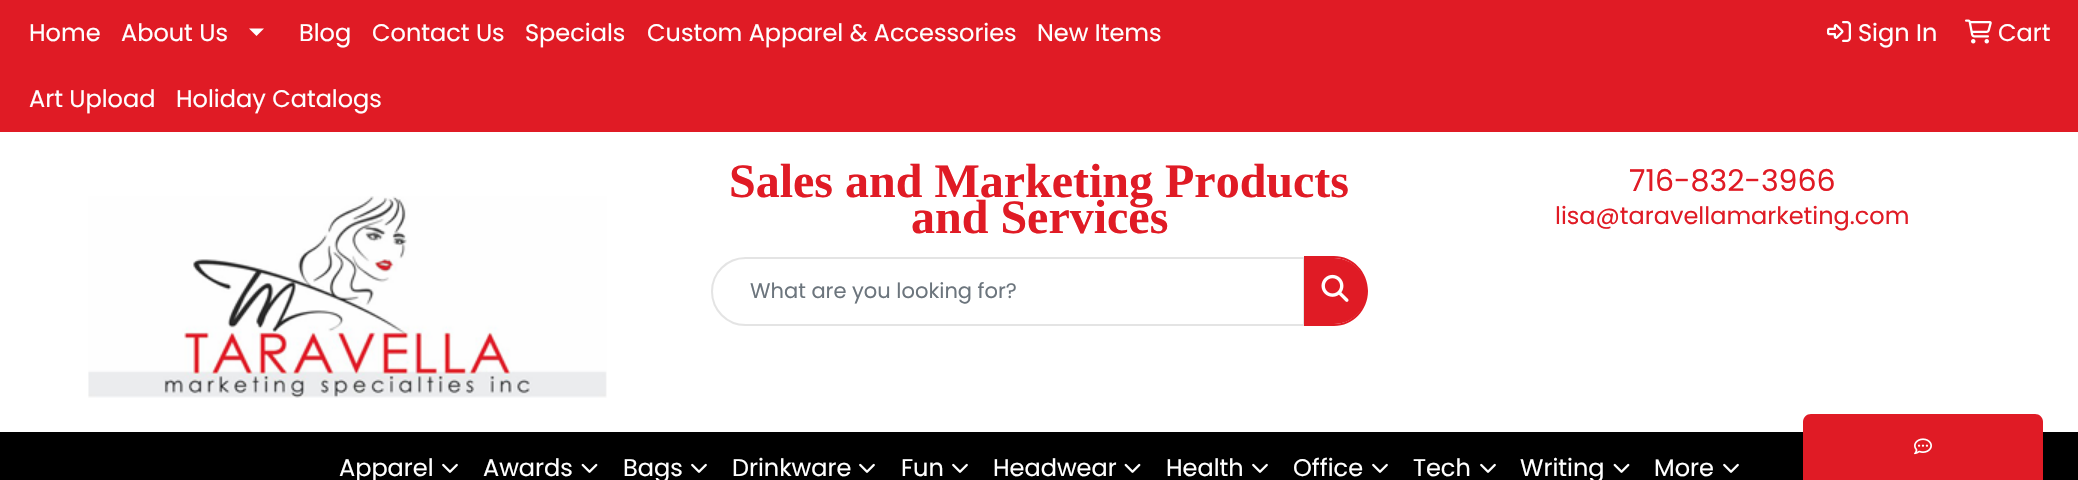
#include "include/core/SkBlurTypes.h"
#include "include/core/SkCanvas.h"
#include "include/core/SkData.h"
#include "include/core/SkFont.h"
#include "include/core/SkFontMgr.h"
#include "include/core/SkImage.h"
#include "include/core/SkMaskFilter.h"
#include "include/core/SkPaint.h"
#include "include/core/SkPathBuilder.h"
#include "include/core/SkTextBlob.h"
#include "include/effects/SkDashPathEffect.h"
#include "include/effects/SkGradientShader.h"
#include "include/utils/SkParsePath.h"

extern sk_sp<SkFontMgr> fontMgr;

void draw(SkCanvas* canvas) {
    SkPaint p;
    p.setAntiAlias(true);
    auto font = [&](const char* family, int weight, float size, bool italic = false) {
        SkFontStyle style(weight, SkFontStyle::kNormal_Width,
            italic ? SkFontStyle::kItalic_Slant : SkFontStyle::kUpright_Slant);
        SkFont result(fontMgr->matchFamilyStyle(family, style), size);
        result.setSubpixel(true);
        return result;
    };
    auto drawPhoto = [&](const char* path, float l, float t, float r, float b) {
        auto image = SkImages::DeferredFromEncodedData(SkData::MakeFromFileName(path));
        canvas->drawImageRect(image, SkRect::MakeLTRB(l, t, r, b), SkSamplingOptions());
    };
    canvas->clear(0xFFFFFFFF);
    p.setColor(0xFFE01B25);
    canvas->drawRect(SkRect::MakeLTRB(0, 0, 2078, 132), p);
    auto font1 = font("Poppins", 400, 24);
    p.setColor(0xFFFFFFFF);
    canvas->drawString("Home", 29, 41, font1, p);
    canvas->drawString("About Us", 121, 41, font1, p);
    canvas->drawPath(SkPathBuilder().moveTo(249, 28.5f).lineTo(264, 28.5f).lineTo(256.5f, 36).close().detach(), p);
    {
        const struct { const char* s; float x, y; } items[] = {
            {"Blog", 299, 41},
            {"Contact Us", 372, 41},
            {"Specials", 525, 41},
            {"Custom Apparel & Accessories", 647, 41},
            {"New Items", 1037, 41},
            {"Art Upload", 29, 107},
            {"Holiday Catalogs", 176, 107},
        };
        for (auto [s, x, y] : items) {
            canvas->drawString(s, x, y, font1, p);
        }
    }
    drawPhoto("media/1.png", 1827, 21, 1851, 42);
    canvas->drawString("Sign In", 1858, 41, font1, p);
    drawPhoto("media/2.png", 1965, 19, 1992, 44);
    canvas->drawString("Cart", 1998, 41, font1, p);
    drawPhoto("media/3.png", 88, 196, 607, 398);
    auto font2 = font("Liberation Serif", 700, 48);
    p.setColor(0xFFE01B25);
    canvas->drawString("Sales and Marketing Products", 729, 197, font2, p);
    canvas->drawString("and Services", 911, 233, font2, p);
    p.setStyle(SkPaint::kStroke_Style);
    p.setStrokeWidth(2);
    p.setColor(0xFFE4E4E4);
    canvas->drawPath(SkPathBuilder().moveTo(745.5f, 258).lineTo(1304, 258).lineTo(1304, 325).lineTo(745.5f, 325).cubicTo(727, 325, 712, 310, 712, 291.5f).cubicTo(712, 273, 727, 258, 745.5f, 258).close().detach(), p);
    auto font3 = font("Poppins", 400, 21);
    p.setStyle(SkPaint::kFill_Style);
    p.setColor(0xFF6C757D);
    canvas->drawString("What are you looking for?", 750, 298, font3, p);
    p.setColor(0xFFE01B25);
    canvas->drawPath(SkPathBuilder().moveTo(1304, 258).lineTo(1334, 258).cubicTo(1352, 258, 1367, 273, 1367, 291).cubicTo(1367, 309, 1352, 324, 1334, 324).lineTo(1304, 324).close().detach(), p);
    canvas->drawPath(SkPathBuilder(SkPathFillType::kEvenOdd).moveTo(1304, 256).lineTo(1334, 256).cubicTo(1353, 256, 1368, 272, 1368, 291).cubicTo(1368, 310, 1353, 326, 1334, 326).lineTo(1304, 326).close().moveTo(1304, 258).lineTo(1334, 258).cubicTo(1352, 258, 1366, 273, 1366, 291).cubicTo(1366, 309, 1352, 324, 1334, 324).lineTo(1304, 324).close().detach(), p);
    drawPhoto("media/4.png", 1321, 274, 1349, 302);
    auto font4 = font("Poppins", 400, 30);
    canvas->drawString("716-832-3966", 1629, 191, font4, p);
    canvas->drawString("lisa@taravellamarketing.com", 1555, 224, font1, p);
    p.setColor(0xFF000000);
    canvas->drawRect(SkRect::MakeLTRB(0, 432, 2078, 480), p);
    p.setColor(0xFFFFFFFF);
    canvas->drawString("Apparel", 339, 476, font1, p);
    drawPhoto("media/5.png", 442, 463, 458, 473);
    canvas->drawString("Awards", 483, 476, font1, p);
    drawPhoto("media/6.png", 581, 463, 598, 473);
    canvas->drawString("Bags", 623, 476, font1, p);
    drawPhoto("media/5.png", 691, 463, 707, 473);
    canvas->drawString("Drinkware", 732, 476, font1, p);
    drawPhoto("media/5.png", 859, 463, 875, 473);
    canvas->drawString("Fun", 901, 476, font1, p);
    drawPhoto("media/5.png", 952, 463, 968, 473);
    canvas->drawString("Headwear", 993, 476, font1, p);
    drawPhoto("media/6.png", 1124, 463, 1141, 473);
    canvas->drawString("Health", 1166, 476, font1, p);
    drawPhoto("media/5.png", 1252, 463, 1268, 473);
    canvas->drawString("Office", 1293, 476, font1, p);
    drawPhoto("media/5.png", 1372, 463, 1388, 473);
    canvas->drawString("Tech", 1413, 476, font1, p);
    drawPhoto("media/5.png", 1480, 463, 1496, 473);
    canvas->drawString("Writing", 1520, 476, font1, p);
    drawPhoto("media/6.png", 1613, 463, 1630, 473);
    canvas->drawString("More", 1654, 476, font1, p);
    drawPhoto("media/5.png", 1723, 463, 1739, 473);
    p.setColor(0xFFE01B25);
    canvas->drawPath(SkPathBuilder().moveTo(1811, 414).lineTo(2035, 414).cubicTo(2039.5f, 414, 2043, 417.5f, 2043, 422).lineTo(2043, 480).lineTo(1803, 480).lineTo(1803, 422).cubicTo(1803, 417.5f, 1806.5f, 414, 1811, 414).close().detach(), p);
    drawPhoto("media/7.png", 1914, 438, 1932, 455);
}
